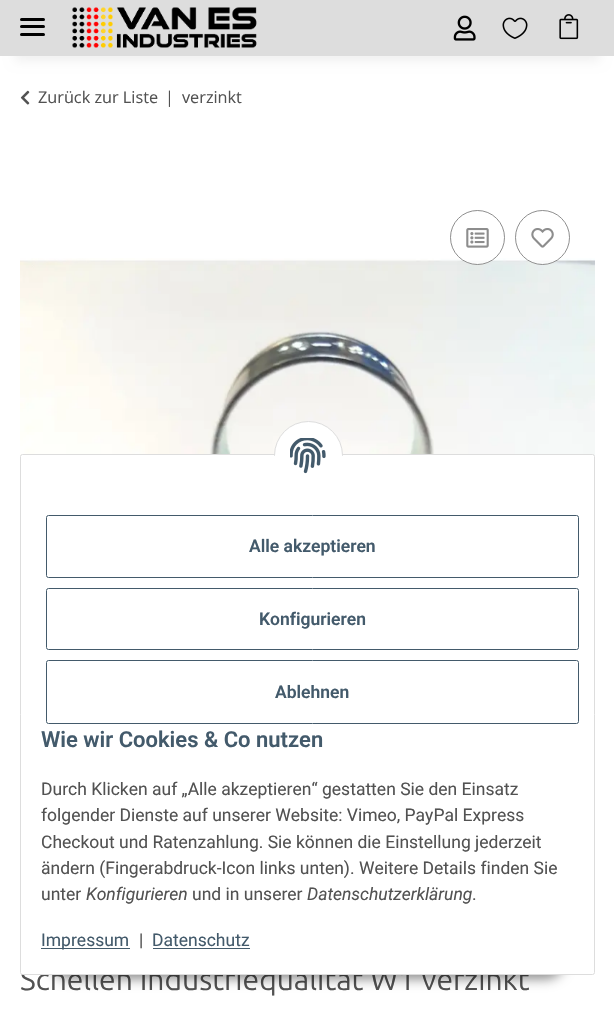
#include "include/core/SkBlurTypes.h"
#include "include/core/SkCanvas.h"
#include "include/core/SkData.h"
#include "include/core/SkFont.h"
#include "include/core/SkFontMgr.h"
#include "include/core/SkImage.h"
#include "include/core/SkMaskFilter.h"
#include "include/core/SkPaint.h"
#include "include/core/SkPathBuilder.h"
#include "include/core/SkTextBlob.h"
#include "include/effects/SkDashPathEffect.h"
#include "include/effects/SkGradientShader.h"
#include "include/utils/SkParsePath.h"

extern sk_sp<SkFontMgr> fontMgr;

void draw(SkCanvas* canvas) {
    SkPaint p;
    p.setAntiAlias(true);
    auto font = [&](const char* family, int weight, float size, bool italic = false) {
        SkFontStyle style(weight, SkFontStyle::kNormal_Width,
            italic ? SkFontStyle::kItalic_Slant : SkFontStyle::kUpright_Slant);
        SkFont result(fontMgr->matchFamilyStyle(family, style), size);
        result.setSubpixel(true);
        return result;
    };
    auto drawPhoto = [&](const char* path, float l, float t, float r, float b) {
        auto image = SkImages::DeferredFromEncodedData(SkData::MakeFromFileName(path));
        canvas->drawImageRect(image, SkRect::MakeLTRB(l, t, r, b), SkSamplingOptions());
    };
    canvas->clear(0xFFFFFFFF);
    p.setColor(0x0F000000);
    p.setMaskFilter(SkMaskFilter::MakeBlur(kNormal_SkBlurStyle, 5.5f));
    canvas->drawRect(SkRect::MakeLTRB(15, 35, 600, 61), p);
    p.setMaskFilter(nullptr);
    p.setColor(0xFFDDDDDD);
    canvas->drawRect(SkRect::MakeLTRB(0, 0, 614, 56), p);
    p.setColor(0xFF000000);
    canvas->drawRoundRect(SkRect::MakeLTRB(20, 25, 45, 28), 1.5f, 1.5f, p);
    canvas->drawRoundRect(SkRect::MakeLTRB(20, 18, 45, 21), 1.5f, 1.5f, p);
    canvas->drawRoundRect(SkRect::MakeLTRB(20, 33, 45, 36), 1.5f, 1.5f, p);
    drawPhoto("media/1.png", 72, 7, 257, 48);
    drawPhoto("media/2.png", 453, 15, 476, 41);
    drawPhoto("media/3.png", 502, 17, 528, 39);
    drawPhoto("media/4.png", 559, 14, 579, 40);
    drawPhoto("media/5.png", 20, 90, 30, 105);
    auto font1 = font("Open Sans", 400, 16.25f);
    p.setColor(0xFF525252);
    {
        const struct { const char* s; float x, y; } items[] = {
            {"Zurück zur Liste", 38, 103},
            {"|", 165, 103},
            {"verzinkt", 182, 103},
        };
        for (auto [s, x, y] : items) {
            canvas->drawString(s, x, y, font1, p);
        }
    }
    drawPhoto("media/8.png", 20, 258, 595, 457);
    p.setColor(0xCCFFFFFF);
    canvas->drawCircle(477.5f, 237.5f, 27.5f, p);
    p.setStyle(SkPaint::kStroke_Style);
    p.setStrokeWidth(1);
    p.setColor(0xCC707070);
    canvas->drawCircle(477.5f, 237.5f, 27, p);
    drawPhoto("media/6.png", 466, 228, 489, 248);
    p.setStyle(SkPaint::kFill_Style);
    p.setColor(0xCCFFFFFF);
    canvas->drawCircle(542.5f, 237.5f, 27.5f, p);
    p.setStyle(SkPaint::kStroke_Style);
    p.setColor(0xCC707070);
    canvas->drawCircle(542.5f, 237.5f, 27, p);
    drawPhoto("media/7.png", 531, 228, 554, 248);
    auto font2 = font("Ubuntu", 400, 30);
    p.setStyle(SkPaint::kFill_Style);
    p.setColor(0xFF525252);
    canvas->drawString("Schellen Industriequalität W1 verzinkt", 20, 990, font2, p);
    p.setColor(0x73000000);
    p.setMaskFilter(SkMaskFilter::MakeBlur(kNormal_SkBlurStyle, 6));
    canvas->drawRoundRect(SkRect::MakeLTRB(50, 939, 565, 979), 20, 20, p);
    p.setMaskFilter(nullptr);
    p.setColor(0xFFFFFFFF);
    canvas->drawRoundRect(SkRect::MakeLTRB(20.5f, 454.5f, 594.5f, 974.5f), 2, 2, p);
    p.setStyle(SkPaint::kStroke_Style);
    p.setColor(0xFFDDDDDD);
    canvas->drawRoundRect(SkRect::MakeLTRB(20.5f, 454.5f, 594.5f, 974.5f), 2, 2, p);
    p.setStyle(SkPaint::kFill_Style);
    p.setColor(0xFFFFFFFF);
    canvas->drawCircle(308.5f, 455.5f, 34, p);
    p.setStyle(SkPaint::kStroke_Style);
    p.setColor(0xFFDDDDDD);
    canvas->drawCircle(308.5f, 455.5f, 34, p);
    p.setStyle(SkPaint::kFill_Style);
    p.setColor(0xFFFFFFFF);
    canvas->drawRect(SkRect::MakeLTRB(274, 456, 343, 490), p);
    drawPhoto("media/9.png", 290, 438, 326, 474);
    p.setStyle(SkPaint::kStroke_Style);
    p.setColor(0xFF435A6B);
    canvas->drawRoundRect(SkRect::MakeLTRB(46.5f, 515.5f, 578.5f, 577.5f), 2, 2, p);
    auto font3 = font("Roboto", 600, 17.5f);
    p.setStyle(SkPaint::kFill_Style);
    canvas->drawString("Alle akzeptieren", 249, 552, font3, p);
    p.setStyle(SkPaint::kStroke_Style);
    canvas->drawRoundRect(SkRect::MakeLTRB(46.5f, 588.5f, 578.5f, 649.5f), 2, 2, p);
    p.setStyle(SkPaint::kFill_Style);
    canvas->drawString("Konfigurieren", 259, 625, font3, p);
    p.setStyle(SkPaint::kStroke_Style);
    canvas->drawRoundRect(SkRect::MakeLTRB(46.5f, 660.5f, 578.5f, 723.5f), 2, 2, p);
    p.setStyle(SkPaint::kFill_Style);
    canvas->drawString("Ablehnen", 275, 698, font3, p);
    auto font4 = font("Roboto", 600, 22);
    canvas->drawString("Wie wir Cookies & Co nutzen", 41, 747, font4, p);
    auto font5 = font("Roboto", 400, 17.5f);
    p.setColor(0xFF525252);
    {
        const struct { const char* s; float x, y; } items[] = {
            {"Durch Klicken auf „Alle akzeptieren“ gestatten Sie den Einsatz", 41, 795},
            {"folgender Dienste auf unserer Website: Vimeo, PayPal Express", 41, 821},
            {"Checkout und Ratenzahlung. Sie können die Einstellung jederzeit", 41, 848},
            {"ändern (Fingerabdruck-Icon links unten). Weitere Details finden Sie", 41, 874},
            {"unter", 41, 900},
        };
        for (auto [s, x, y] : items) {
            canvas->drawString(s, x, y, font5, p);
        }
    }
    auto font6 = font("Roboto", 400, 17.5f, true);
    canvas->drawString("Konfigurieren", 86, 900, font6, p);
    canvas->drawString("und in unserer", 192, 900, font5, p);
    canvas->drawString("Datenschutzerklärung", 307, 900, font6, p);
    canvas->drawString(".", 472, 900, font5, p);
    p.setColor(0xFF435A6B);
    canvas->drawRect(SkRect::MakeLTRB(41, 948, 130, 949), p);
    canvas->drawString("Impressum", 41, 946, font5, p);
    p.setColor(0xFF525252);
    canvas->drawString("|", 139, 946, font5, p);
    p.setColor(0xFF435A6B);
    canvas->drawString("Datenschutz", 152, 946, font5, p);
    canvas->drawRect(SkRect::MakeLTRB(153, 948, 250, 949), p);
}
